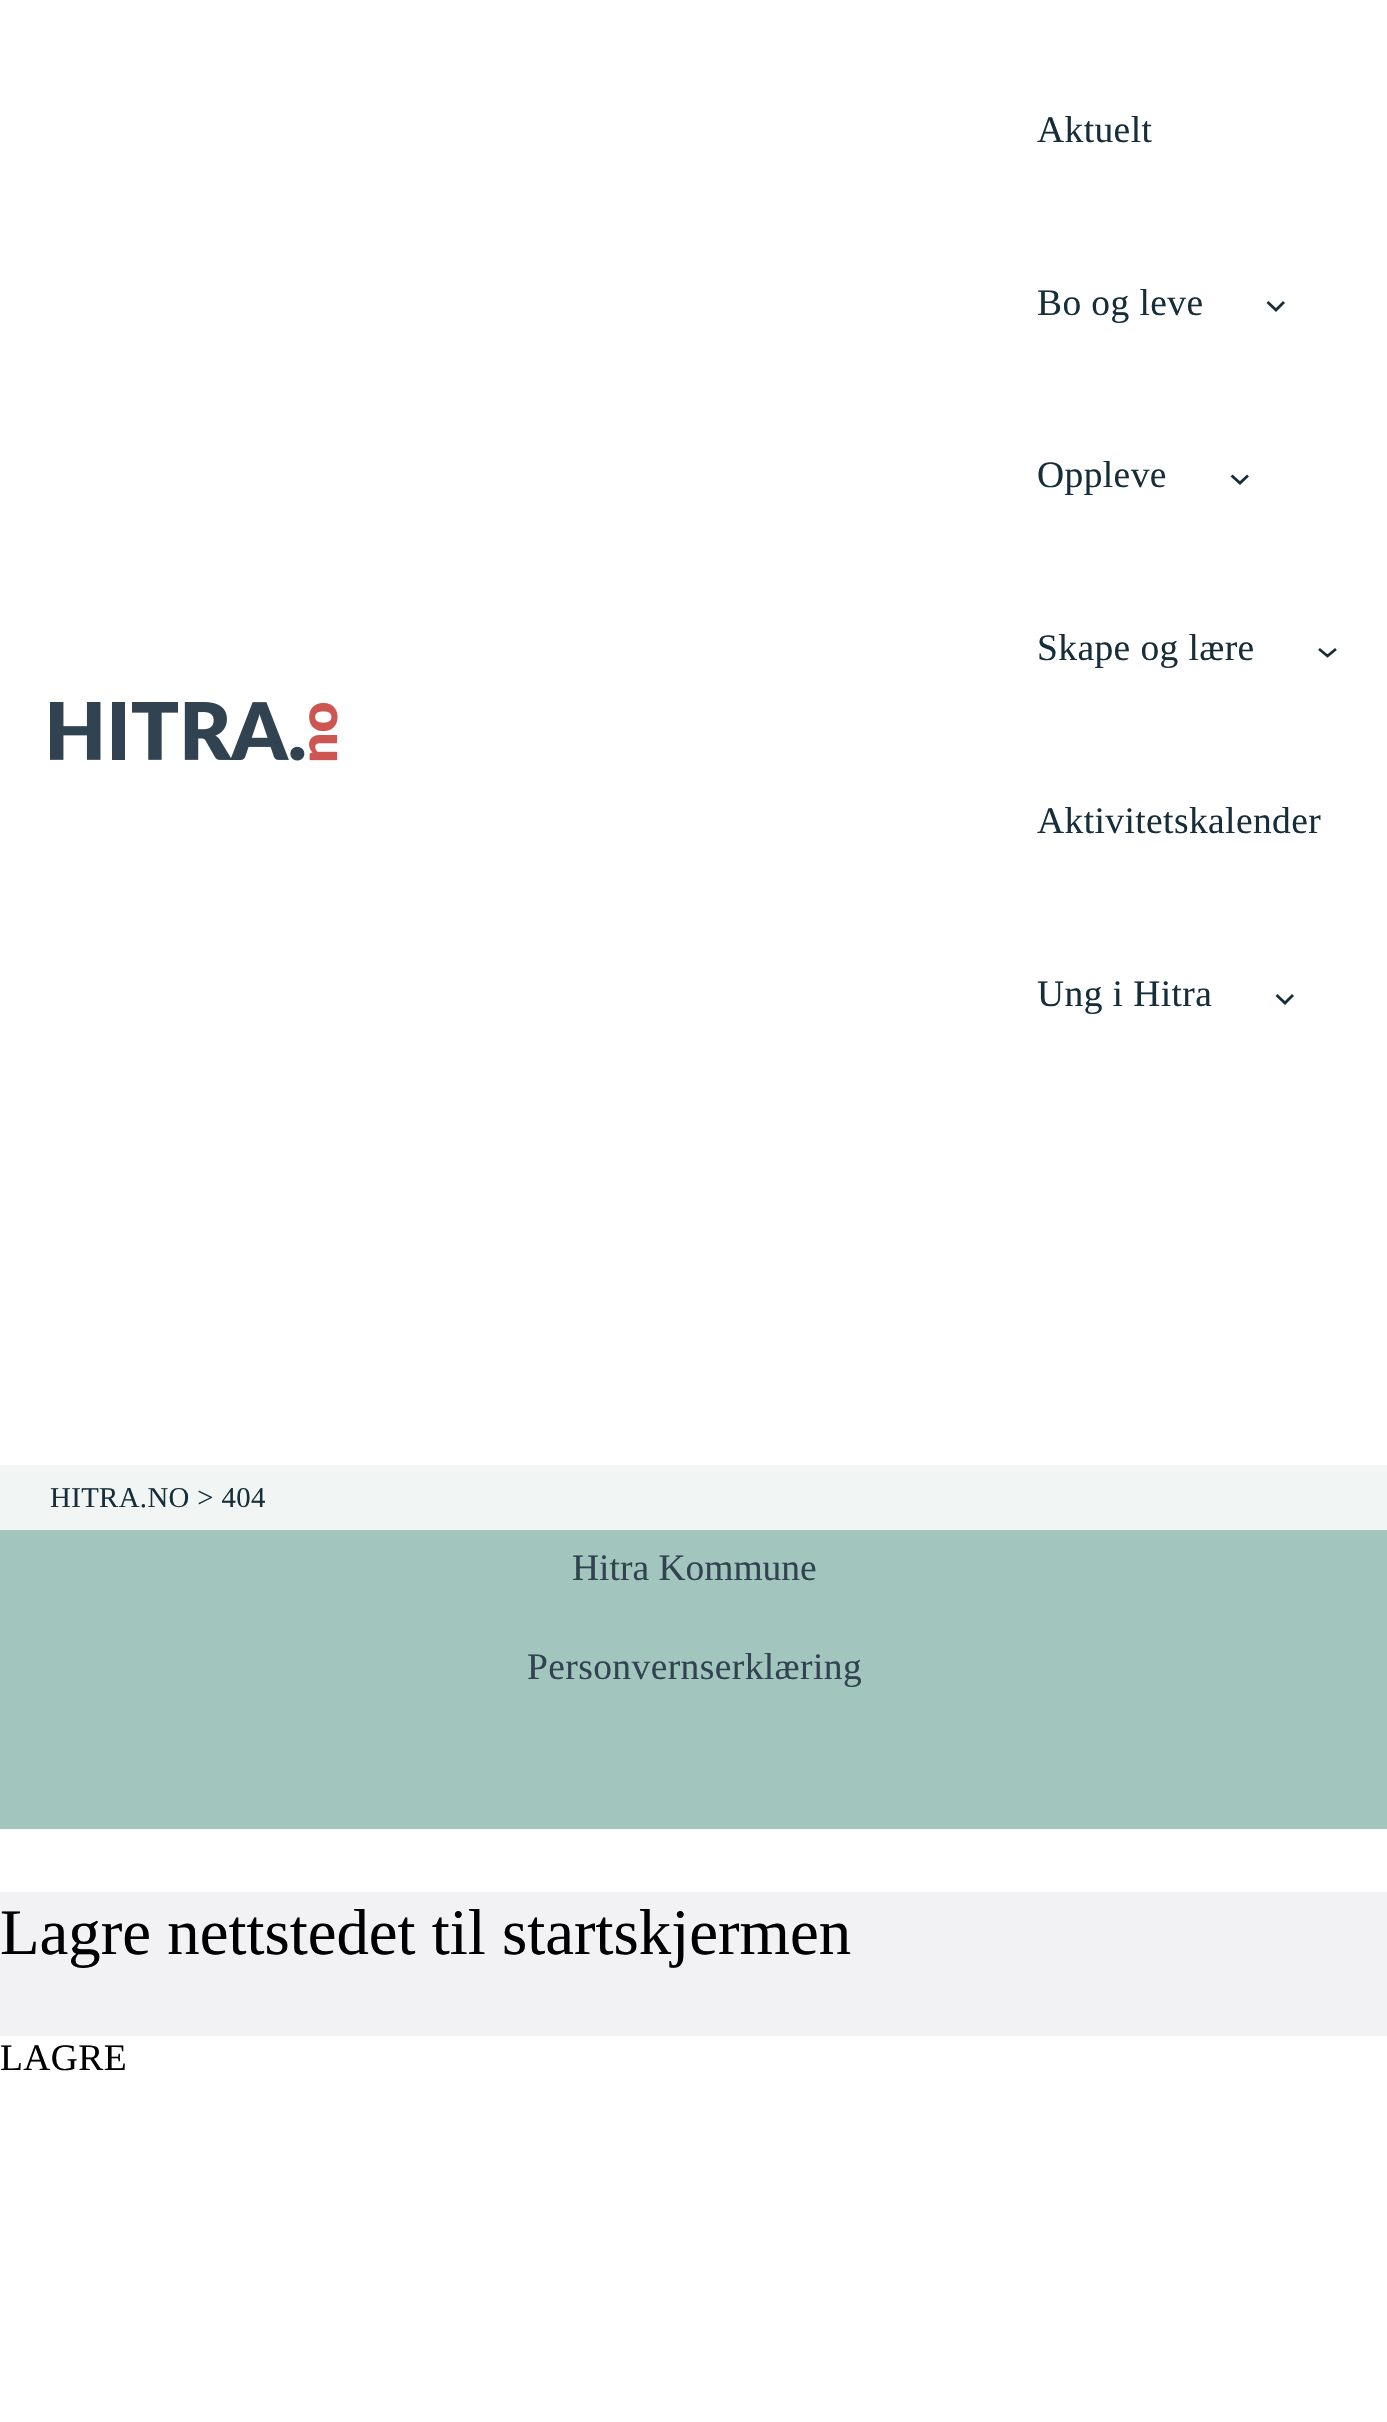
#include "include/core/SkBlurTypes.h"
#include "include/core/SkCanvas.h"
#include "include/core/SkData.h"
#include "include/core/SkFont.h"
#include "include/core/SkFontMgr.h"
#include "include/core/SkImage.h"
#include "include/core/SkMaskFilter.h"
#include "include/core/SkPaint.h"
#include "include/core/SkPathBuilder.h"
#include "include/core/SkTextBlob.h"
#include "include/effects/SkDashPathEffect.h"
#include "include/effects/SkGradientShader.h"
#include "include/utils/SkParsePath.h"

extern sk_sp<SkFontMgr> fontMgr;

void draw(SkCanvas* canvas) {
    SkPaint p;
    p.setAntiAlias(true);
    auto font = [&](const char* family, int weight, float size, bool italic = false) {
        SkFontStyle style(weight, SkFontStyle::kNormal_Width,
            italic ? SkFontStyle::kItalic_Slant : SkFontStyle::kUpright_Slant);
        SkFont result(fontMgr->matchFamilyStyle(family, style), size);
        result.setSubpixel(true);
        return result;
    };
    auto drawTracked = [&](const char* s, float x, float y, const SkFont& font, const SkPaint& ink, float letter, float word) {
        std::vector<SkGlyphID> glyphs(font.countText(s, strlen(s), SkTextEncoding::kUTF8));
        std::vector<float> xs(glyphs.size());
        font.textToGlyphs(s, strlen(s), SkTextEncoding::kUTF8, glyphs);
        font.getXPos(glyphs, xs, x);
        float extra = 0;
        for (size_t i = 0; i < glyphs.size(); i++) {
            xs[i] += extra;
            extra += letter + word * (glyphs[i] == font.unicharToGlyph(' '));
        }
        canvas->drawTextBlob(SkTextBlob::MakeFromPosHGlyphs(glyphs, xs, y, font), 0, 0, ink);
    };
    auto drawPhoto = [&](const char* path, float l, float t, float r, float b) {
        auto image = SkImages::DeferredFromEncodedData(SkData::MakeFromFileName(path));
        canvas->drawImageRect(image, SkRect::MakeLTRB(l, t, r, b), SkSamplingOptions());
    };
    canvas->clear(0xFFFFFFFF);
    drawPhoto("media/1.png", 50, 702, 338, 761);
    auto font1 = font("Liberation Serif", 400, 37.5f);
    p.setColor(0xFF162E39);
    drawTracked("Aktuelt", 1037, 142, font1, p, 0.4f, 0);
    drawTracked("Bo og leve", 1037, 315, font1, p, 0.4f, 0);
    p.setStyle(SkPaint::kStroke_Style);
    p.setStrokeWidth(2.8f);
    canvas->drawPath(SkPathBuilder().moveTo(1267.5f, 302).lineTo(1276, 310).lineTo(1284, 302).detach(), p);
    p.setStyle(SkPaint::kFill_Style);
    drawTracked("Oppleve", 1037, 487, font1, p, 0.4f, 0);
    p.setStyle(SkPaint::kStroke_Style);
    canvas->drawPath(SkPathBuilder().moveTo(1231.5f, 475.5f).lineTo(1240, 483).lineTo(1248, 475.5f).detach(), p);
    p.setStyle(SkPaint::kFill_Style);
    drawTracked("Skape og lære", 1037, 660, font1, p, 0.4f, 0);
    p.setStyle(SkPaint::kStroke_Style);
    canvas->drawPath(SkPathBuilder().moveTo(1319, 649).lineTo(1327.5f, 656).lineTo(1336, 649).detach(), p);
    p.setStyle(SkPaint::kFill_Style);
    drawTracked("Aktivitetskalender", 1037, 833, font1, p, 0.4f, 0);
    drawTracked("Ung i Hitra", 1037, 1006, font1, p, 0.4f, 0);
    p.setStyle(SkPaint::kStroke_Style);
    canvas->drawPath(SkPathBuilder().moveTo(1276.5f, 995).lineTo(1285, 1003).lineTo(1293, 995).detach(), p);
    p.setStyle(SkPaint::kFill_Style);
    p.setColor(0xFFF1F6F5);
    canvas->drawRect(SkRect::MakeLTRB(0, 1465, 1387, 1530), p);
    auto font2 = font("Liberation Serif", 400, 28.75f);
    p.setColor(0xFF162E39);
    drawTracked("HITRA.NO > 404", 50, 1507, font2, p, 0.4f, 0);
    p.setColor(0xFFA2C6BD);
    canvas->drawRect(SkRect::MakeLTRB(0, 1530, 1387, 1829), p);
    p.setColor(0xFF314351);
    canvas->drawString("Hitra Kommune", 572, 1580, font1, p);
    drawTracked("Personvernserklæring", 527, 1679, font1, p, 0.4f, 0);
    p.setColor(0xFFF2F2F5);
    canvas->drawRect(SkRect::MakeLTRB(0, 1892, 1387, 2036), p);
    auto font3 = font("Liberation Serif", 400, 64.8f);
    p.setColor(0xFF000000);
    canvas->drawString("Lagre nettstedet til startskjermen", 0, 1954, font3, p);
    drawTracked("LAGRE", 0, 2070, font1, p, 0.4f, 0);
}
